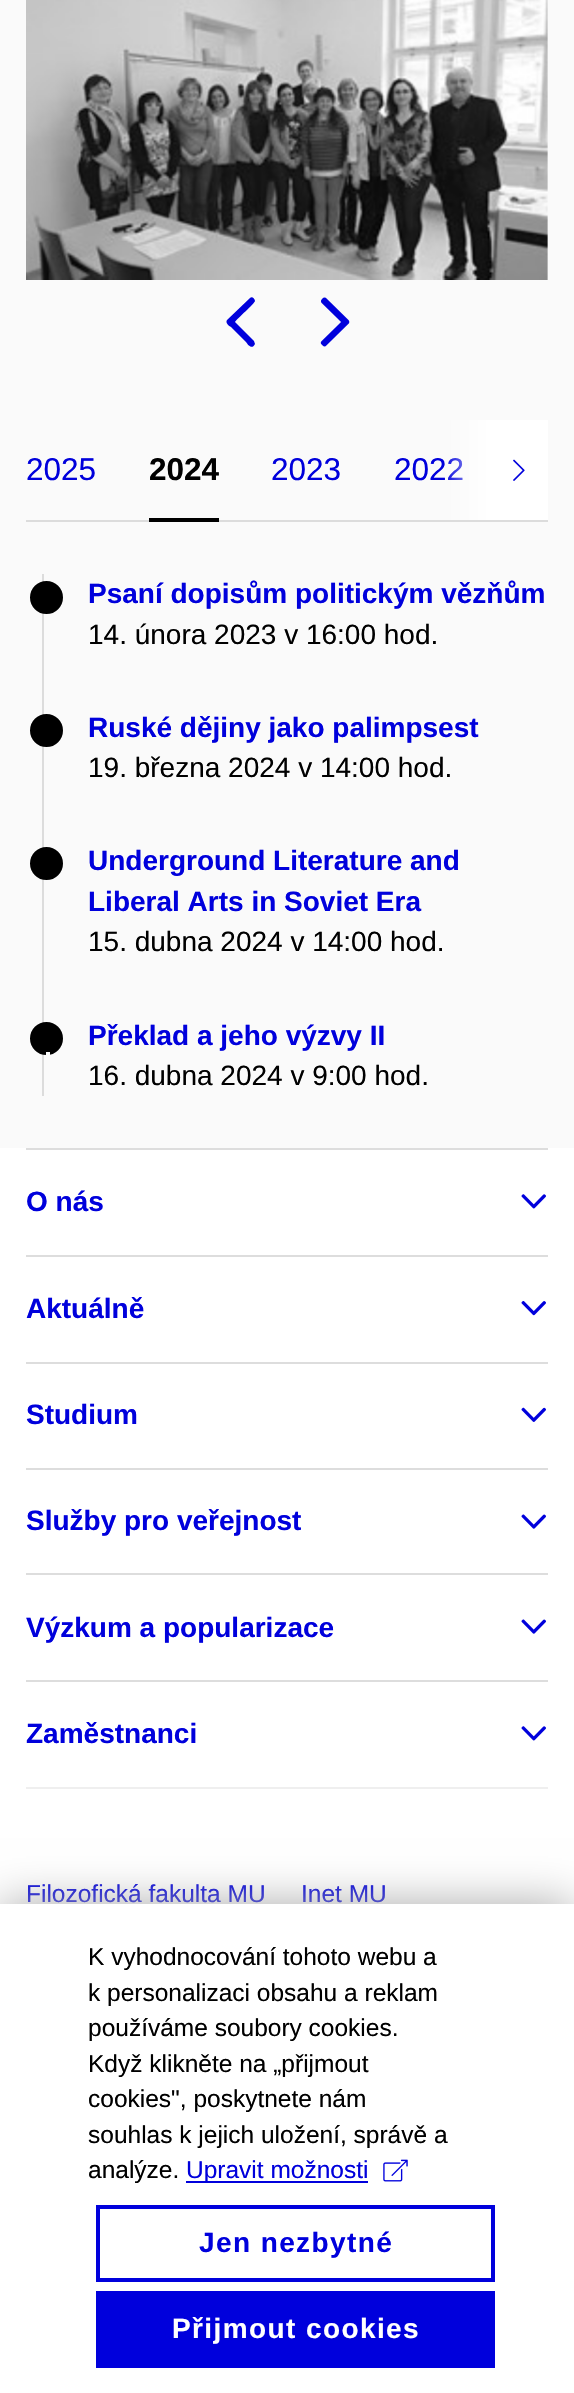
#include "include/core/SkBlurTypes.h"
#include "include/core/SkCanvas.h"
#include "include/core/SkData.h"
#include "include/core/SkFont.h"
#include "include/core/SkFontMgr.h"
#include "include/core/SkImage.h"
#include "include/core/SkMaskFilter.h"
#include "include/core/SkPaint.h"
#include "include/core/SkPathBuilder.h"
#include "include/core/SkTextBlob.h"
#include "include/effects/SkDashPathEffect.h"
#include "include/effects/SkGradientShader.h"
#include "include/utils/SkParsePath.h"

extern sk_sp<SkFontMgr> fontMgr;

void draw(SkCanvas* canvas) {
    SkPaint p;
    p.setAntiAlias(true);
    auto font = [&](const char* family, int weight, float size, bool italic = false) {
        SkFontStyle style(weight, SkFontStyle::kNormal_Width,
            italic ? SkFontStyle::kItalic_Slant : SkFontStyle::kUpright_Slant);
        SkFont result(fontMgr->matchFamilyStyle(family, style), size);
        result.setSubpixel(true);
        return result;
    };
    auto drawTracked = [&](const char* s, float x, float y, const SkFont& font, const SkPaint& ink, float letter, float word) {
        std::vector<SkGlyphID> glyphs(font.countText(s, strlen(s), SkTextEncoding::kUTF8));
        std::vector<float> xs(glyphs.size());
        font.textToGlyphs(s, strlen(s), SkTextEncoding::kUTF8, glyphs);
        font.getXPos(glyphs, xs, x);
        float extra = 0;
        for (size_t i = 0; i < glyphs.size(); i++) {
            xs[i] += extra;
            extra += letter + word * (glyphs[i] == font.unicharToGlyph(' '));
        }
        canvas->drawTextBlob(SkTextBlob::MakeFromPosHGlyphs(glyphs, xs, y, font), 0, 0, ink);
    };
    auto drawPhoto = [&](const char* path, float l, float t, float r, float b) {
        auto image = SkImages::DeferredFromEncodedData(SkData::MakeFromFileName(path));
        canvas->drawImageRect(image, SkRect::MakeLTRB(l, t, r, b), SkSamplingOptions());
    };
    canvas->clear(0xFFFAFAFA);
    drawPhoto("media/1.png", 26, 0, 548, 280);
    p.setColor(0xFF0000DC);
    canvas->drawPath(SkPathBuilder().moveTo(227, 320).lineTo(250, 298).cubicTo(252, 296, 255, 299, 255, 301).cubicTo(255, 303, 237, 319, 235, 322).lineTo(254, 341).lineTo(255, 344).cubicTo(252, 350, 248, 345, 246, 342).lineTo(231, 327).cubicTo(229, 326, 225, 323, 227, 320).close().detach(), p);
    drawPhoto("media/2.png", 320, 297, 350, 347);
    auto font1 = font("Liberation Sans", 400, 31.5f);
    canvas->drawString("2025", 26, 480, font1, p);
    auto font2 = font("Liberation Sans", 700, 31.5f);
    p.setColor(0xFF000000);
    canvas->drawString("2024", 149, 480, font2, p);
    p.setColor(0xFFDCDCDC);
    canvas->drawRect(SkRect::MakeLTRB(26, 520, 548, 522), p);
    p.setColor(0xFF000000);
    canvas->drawRect(SkRect::MakeLTRB(149, 518, 219, 522), p);
    p.setColor(0xFF0000DC);
    canvas->drawString("2023", 271, 480, font1, p);
    canvas->drawString("2022", 394, 480, font1, p);
    p.setColor(0xFFFFFFFF);
    canvas->drawRect(SkRect::MakeLTRB(495, 420, 548, 520), p);
    {
        const SkColor colors[] = {0x00FFFFFF, 0xFFFFFFFF};
        const float stops[] = {0, 1};
        const SkPoint ends[] = {{443, 470}, {495, 470}};
        p.setShader(SkGradientShader::MakeLinear(ends, colors, stops, 2, SkTileMode::kClamp));
        p.setAlpha(255);
    }
    canvas->drawRect(SkRect::MakeLTRB(444, 420, 495, 520), p);
    drawPhoto("media/3.png", 513, 459, 525, 481);
    p.setShader(nullptr);
    p.setColor(0xFFDCDCDC);
    canvas->drawRect(SkRect::MakeLTRB(42, 574, 44, 1096), p);
    p.setColor(0xFF000000);
    canvas->drawCircle(46.5f, 597.5f, 14, p);
    p.setStyle(SkPaint::kStroke_Style);
    p.setStrokeWidth(5);
    canvas->drawCircle(46.5f, 597.5f, 14, p);
    auto font3 = font("Liberation Sans", 700, 28);
    p.setStyle(SkPaint::kFill_Style);
    p.setColor(0xFF0000DC);
    canvas->drawString("Psaní dopisům politickým vězňům", 88, 603, font3, p);
    auto font4 = font("Liberation Sans", 400, 28);
    p.setColor(0xFF000000);
    canvas->drawString("14. února 2023 v 16:00 hod.", 88, 644, font4, p);
    canvas->drawCircle(46.5f, 730.5f, 14, p);
    p.setStyle(SkPaint::kStroke_Style);
    canvas->drawCircle(46.5f, 730.5f, 14, p);
    p.setStyle(SkPaint::kFill_Style);
    p.setColor(0xFF0000DC);
    canvas->drawString("Ruské dějiny jako palimpsest", 88, 737, font3, p);
    p.setColor(0xFF000000);
    canvas->drawString("19. března 2024 v 14:00 hod.", 88, 777, font4, p);
    canvas->drawCircle(46.5f, 863.5f, 14, p);
    p.setStyle(SkPaint::kStroke_Style);
    canvas->drawCircle(46.5f, 863.5f, 14, p);
    p.setStyle(SkPaint::kFill_Style);
    p.setColor(0xFF0000DC);
    canvas->drawString("Underground Literature and", 88, 870, font3, p);
    canvas->drawString("Liberal Arts in Soviet Era", 88, 911, font3, p);
    p.setColor(0xFF000000);
    canvas->drawString("15. dubna 2024 v 14:00 hod.", 88, 951, font4, p);
    canvas->drawCircle(46.5f, 1038.5f, 14, p);
    p.setStyle(SkPaint::kStroke_Style);
    canvas->drawCircle(46.5f, 1038.5f, 14, p);
    p.setStyle(SkPaint::kFill_Style);
    p.setColor(0xFFFAFAFA);
    canvas->drawRect(SkRect::MakeLTRB(46, 1052, 50, 1055), p);
    p.setColor(0xFF0000DC);
    canvas->drawString("Překlad a jeho výzvy II", 88, 1045, font3, p);
    p.setColor(0xFF000000);
    canvas->drawString("16. dubna 2024 v 9:00 hod.", 88, 1085, font4, p);
    {
        const struct { float l, t, r, b; SkColor color; } items[] = {
            {0, 1148, 574, 1904, 0xFFFFFFFF},
            {26, 1787, 548, 1789, 0xFFEFEFEF},
            {26, 1148, 548, 1150, 0xFFDDDDDD},
        };
        for (auto [l, t, r, b, color] : items) {
            p.setColor(color);
            canvas->drawRect(SkRect::MakeLTRB(l, t, r, b), p);
        }
    }
    p.setColor(0xFF0000DC);
    canvas->drawString("O nás", 26, 1211, font3, p);
    drawPhoto("media/4.png", 521, 1194, 546, 1209);
    p.setColor(0xFFDDDDDD);
    canvas->drawRect(SkRect::MakeLTRB(26, 1255, 548, 1257), p);
    p.setColor(0xFF0000DC);
    canvas->drawString("Aktuálně", 26, 1318, font3, p);
    drawPhoto("media/5.png", 521, 1301, 546, 1316);
    p.setColor(0xFFDDDDDD);
    canvas->drawRect(SkRect::MakeLTRB(26, 1362, 548, 1364), p);
    p.setColor(0xFF0000DC);
    canvas->drawString("Studium", 26, 1424, font3, p);
    drawPhoto("media/6.png", 521, 1407, 546, 1422);
    p.setColor(0xFFDDDDDD);
    canvas->drawRect(SkRect::MakeLTRB(26, 1468, 548, 1470), p);
    p.setColor(0xFF0000DC);
    canvas->drawString("Služby pro veřejnost", 26, 1530, font3, p);
    drawPhoto("media/7.png", 521, 1514, 546, 1529);
    p.setColor(0xFFDDDDDD);
    canvas->drawRect(SkRect::MakeLTRB(26, 1573, 548, 1575), p);
    p.setColor(0xFF0000DC);
    canvas->drawString("Výzkum a popularizace", 26, 1637, font3, p);
    drawPhoto("media/7.png", 521, 1619, 546, 1634);
    p.setColor(0xFFDDDDDD);
    canvas->drawRect(SkRect::MakeLTRB(26, 1680, 548, 1682), p);
    p.setColor(0xFF0000DC);
    canvas->drawString("Zaměstnanci", 26, 1743, font3, p);
    drawPhoto("media/4.png", 521, 1726, 546, 1741);
    auto font5 = font("Liberation Sans", 400, 24.5f);
    canvas->drawString("Filozofická fakulta MU", 26, 1902, font5, p);
    canvas->drawString("Inet MU", 301, 1902, font5, p);
    p.setColor(0xFFAAAAAA);
    p.setMaskFilter(SkMaskFilter::MakeBlur(kNormal_SkBlurStyle, 22));
    canvas->drawRect(SkRect::MakeLTRB(0, 1904, 574, 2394), p);
    p.setMaskFilter(nullptr);
    p.setColor(0xFFFFFFFF);
    canvas->drawRect(SkRect::MakeLTRB(0, 1904, 574, 2393), p);
    p.setColor(0xFF000000);
    {
        const struct { const char* s; float x, y; } items[] = {
            {"K vyhodnocování tohoto webu a", 88, 1965},
            {"k personalizaci obsahu a reklam", 88, 2001},
            {"používáme soubory cookies.", 88, 2036},
            {"Když klikněte na „přijmout", 88, 2072},
            {"cookies\", poskytnete nám", 88, 2107},
            {"souhlas k jejich uložení, správě a", 88, 2143},
            {"analýze.", 88, 2178},
        };
        for (auto [s, x, y] : items) {
            canvas->drawString(s, x, y, font5, p);
        }
    }
    p.setColor(0xFF0000DC);
    canvas->drawRect(SkRect::MakeLTRB(186, 2181, 368, 2183), p);
    canvas->drawString("Upravit možnosti", 186, 2178, font5, p);
    drawPhoto("media/8.png", 383, 2159, 408, 2182);
    p.setStyle(SkPaint::kStroke_Style);
    p.setStrokeWidth(4);
    canvas->drawRect(SkRect::MakeLTRB(98, 2207, 493, 2280), p);
    p.setStyle(SkPaint::kFill_Style);
    drawTracked("Jen nezbytné", 199, 2252, font3, p, 1.4f, 0);
    canvas->drawRect(SkRect::MakeLTRB(96, 2291, 495, 2368), p);
    p.setColor(0xFFFFFFFF);
    drawTracked("Přijmout cookies", 172, 2338, font3, p, 1.4f, 0);
}
